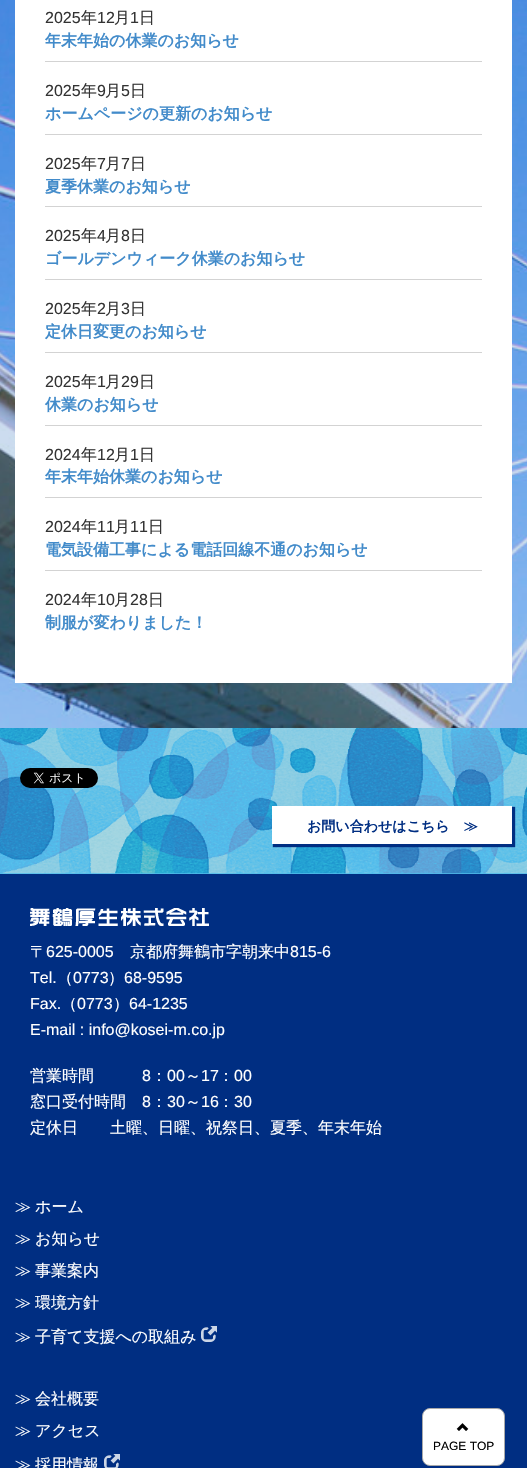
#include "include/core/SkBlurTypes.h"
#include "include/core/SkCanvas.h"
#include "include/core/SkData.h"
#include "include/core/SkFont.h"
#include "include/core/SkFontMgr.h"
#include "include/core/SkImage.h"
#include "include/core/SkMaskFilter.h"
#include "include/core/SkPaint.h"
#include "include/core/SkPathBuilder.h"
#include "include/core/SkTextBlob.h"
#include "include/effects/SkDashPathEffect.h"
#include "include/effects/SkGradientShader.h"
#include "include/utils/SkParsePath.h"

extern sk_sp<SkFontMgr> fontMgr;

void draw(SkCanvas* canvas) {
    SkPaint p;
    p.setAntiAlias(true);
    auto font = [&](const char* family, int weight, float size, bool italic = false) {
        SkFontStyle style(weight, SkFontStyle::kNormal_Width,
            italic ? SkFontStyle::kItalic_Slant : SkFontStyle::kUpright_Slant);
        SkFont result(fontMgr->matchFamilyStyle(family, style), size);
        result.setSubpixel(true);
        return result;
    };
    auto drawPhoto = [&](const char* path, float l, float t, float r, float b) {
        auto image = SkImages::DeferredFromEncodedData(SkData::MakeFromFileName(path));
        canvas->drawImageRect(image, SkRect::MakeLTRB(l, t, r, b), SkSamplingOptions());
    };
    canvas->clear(0xFFFFFFFF);
    drawPhoto("media/1.png", 0, 0, 527, 728);
    {
        const struct { float l, t, r, b; SkColor color; } items[] = {
            {0, 0, 527, 728, 0x33005AAF},
            {15, 0, 512, 683, 0xFFFFFFFF},
            {45, 61, 482, 62, 0xFFD3D3D3},
        };
        for (auto [l, t, r, b, color] : items) {
            p.setColor(color);
            canvas->drawRect(SkRect::MakeLTRB(l, t, r, b), p);
        }
    }
    auto font1 = font("Liberation Sans", 400, 16);
    p.setColor(0xFF333333);
    canvas->drawString("2025", 45, 23, font1, p);
    auto font2 = font("WenQuanYi Zen Hei", 500, 16);
    canvas->drawString("年", 81, 23, font2, p);
    canvas->drawString("12", 97, 23, font1, p);
    canvas->drawString("月", 114, 23, font2, p);
    canvas->drawString("1", 130, 23, font1, p);
    canvas->drawString("日", 139, 23, font2, p);
    auto font3 = font("WenQuanYi Zen Hei", 700, 16);
    p.setColor(0xFF428BCA);
    canvas->drawString("年末年始の休業のお知らせ", 45, 46, font3, p);
    p.setColor(0xFFD3D3D3);
    canvas->drawRect(SkRect::MakeLTRB(45, 134, 482, 135), p);
    p.setColor(0xFF333333);
    canvas->drawString("2025", 45, 96, font1, p);
    canvas->drawString("年", 81, 96, font2, p);
    canvas->drawString("9", 97, 96, font1, p);
    canvas->drawString("月", 105, 96, font2, p);
    canvas->drawString("5", 121, 96, font1, p);
    canvas->drawString("日", 130, 96, font2, p);
    p.setColor(0xFF428BCA);
    canvas->drawString("ホームページの更新のお知らせ", 45, 119, font3, p);
    p.setColor(0xFFD3D3D3);
    canvas->drawRect(SkRect::MakeLTRB(45, 206, 482, 207), p);
    p.setColor(0xFF333333);
    canvas->drawString("2025", 45, 169, font1, p);
    canvas->drawString("年", 81, 169, font2, p);
    canvas->drawString("7", 97, 169, font1, p);
    canvas->drawString("月", 105, 169, font2, p);
    canvas->drawString("7", 121, 169, font1, p);
    canvas->drawString("日", 130, 169, font2, p);
    p.setColor(0xFF428BCA);
    canvas->drawString("夏季休業のお知らせ", 45, 192, font3, p);
    p.setColor(0xFFD3D3D3);
    canvas->drawRect(SkRect::MakeLTRB(45, 279, 482, 280), p);
    p.setColor(0xFF333333);
    canvas->drawString("2025", 45, 241, font1, p);
    canvas->drawString("年", 81, 241, font2, p);
    canvas->drawString("4", 97, 241, font1, p);
    canvas->drawString("月", 105, 241, font2, p);
    canvas->drawString("8", 121, 241, font1, p);
    canvas->drawString("日", 130, 241, font2, p);
    p.setColor(0xFF428BCA);
    canvas->drawString("ゴールデンウィーク休業のお知らせ", 45, 264, font3, p);
    p.setColor(0xFFD3D3D3);
    canvas->drawRect(SkRect::MakeLTRB(45, 352, 482, 353), p);
    p.setColor(0xFF333333);
    canvas->drawString("2025", 45, 314, font1, p);
    canvas->drawString("年", 81, 314, font2, p);
    canvas->drawString("2", 97, 314, font1, p);
    canvas->drawString("月", 105, 314, font2, p);
    canvas->drawString("3", 121, 314, font1, p);
    canvas->drawString("日", 130, 314, font2, p);
    p.setColor(0xFF428BCA);
    canvas->drawString("定休日変更のお知らせ", 45, 337, font3, p);
    p.setColor(0xFFD3D3D3);
    canvas->drawRect(SkRect::MakeLTRB(45, 425, 482, 426), p);
    p.setColor(0xFF333333);
    canvas->drawString("2025", 45, 387, font1, p);
    canvas->drawString("年", 81, 387, font2, p);
    canvas->drawString("1", 97, 387, font1, p);
    canvas->drawString("月", 105, 387, font2, p);
    canvas->drawString("29", 121, 387, font1, p);
    canvas->drawString("日", 139, 387, font2, p);
    p.setColor(0xFF428BCA);
    canvas->drawString("休業のお知らせ", 45, 410, font3, p);
    p.setColor(0xFFD3D3D3);
    canvas->drawRect(SkRect::MakeLTRB(45, 497, 482, 498), p);
    p.setColor(0xFF333333);
    canvas->drawString("2024", 45, 460, font1, p);
    canvas->drawString("年", 81, 460, font2, p);
    canvas->drawString("12", 97, 460, font1, p);
    canvas->drawString("月", 114, 460, font2, p);
    canvas->drawString("1", 130, 460, font1, p);
    canvas->drawString("日", 139, 460, font2, p);
    p.setColor(0xFF428BCA);
    canvas->drawString("年末年始休業のお知らせ", 45, 482, font3, p);
    p.setColor(0xFFD3D3D3);
    canvas->drawRect(SkRect::MakeLTRB(45, 570, 482, 571), p);
    p.setColor(0xFF333333);
    canvas->drawString("2024", 45, 532, font1, p);
    canvas->drawString("年", 81, 532, font2, p);
    canvas->drawString("11", 97, 532, font1, p);
    canvas->drawString("月", 114, 532, font2, p);
    canvas->drawString("11", 130, 532, font1, p);
    canvas->drawString("日", 148, 532, font2, p);
    p.setColor(0xFF428BCA);
    canvas->drawString("電気設備工事による電話回線不通のお知らせ", 45, 555, font3, p);
    p.setColor(0xFF333333);
    canvas->drawString("2024", 45, 605, font1, p);
    canvas->drawString("年", 81, 605, font2, p);
    canvas->drawString("10", 97, 605, font1, p);
    canvas->drawString("月", 114, 605, font2, p);
    canvas->drawString("28", 130, 605, font1, p);
    canvas->drawString("日", 148, 605, font2, p);
    p.setColor(0xFF428BCA);
    canvas->drawString("制服が変わりました！", 45, 628, font3, p);
    p.setColor(0xFF51BBEB);
    canvas->drawRect(SkRect::MakeLTRB(0, 873, 527, 874), p);
    drawPhoto("media/2.png", 0, 728, 527, 874);
    drawPhoto("media/3.png", 20, 768, 98, 788);
    p.setColor(0xFF002E82);
    p.setMaskFilter(SkMaskFilter::MakeBlur(kNormal_SkBlurStyle, 0.5f));
    canvas->drawRect(SkRect::MakeLTRB(273, 807, 515, 847), p);
    p.setMaskFilter(nullptr);
    p.setColor(0xFFFFFFFF);
    canvas->drawRect(SkRect::MakeLTRB(272, 806, 512, 844), p);
    auto font4 = font("WenQuanYi Zen Hei", 700, 14);
    p.setColor(0xFF002E82);
    canvas->drawString("お問い合わせはこちら　≫", 307, 831, font4, p);
    canvas->drawRect(SkRect::MakeLTRB(0, 874, 527, 1468), p);
    drawPhoto("media/4.png", 30, 908, 209, 926);
    p.setColor(0xFFFFFFFF);
    canvas->drawString("〒", 30, 957, font2, p);
    canvas->drawString("625-0005", 46, 957, font1, p);
    canvas->drawString("京都府舞鶴市字朝来中", 130, 957, font2, p);
    canvas->drawString("815-6", 290, 957, font1, p);
    canvas->drawString("Tel.", 30, 983, font1, p);
    canvas->drawString("（", 57, 983, font2, p);
    canvas->drawString("0773", 73, 983, font1, p);
    canvas->drawString("）", 108, 983, font2, p);
    canvas->drawString("68-9595", 124, 983, font1, p);
    canvas->drawString("Fax.", 30, 1009, font1, p);
    canvas->drawString("（", 61, 1009, font2, p);
    canvas->drawString("0773", 77, 1009, font1, p);
    canvas->drawString("）", 113, 1009, font2, p);
    canvas->drawString("64-1235", 129, 1009, font1, p);
    canvas->drawString("E-mail : info@kosei-m.co.jp", 30, 1035, font1, p);
    canvas->drawString("営業時間", 30, 1081, font2, p);
    canvas->drawString("8", 142, 1081, font1, p);
    canvas->drawString("：", 151, 1081, font2, p);
    canvas->drawString("00", 167, 1081, font1, p);
    canvas->drawString("～", 185, 1081, font2, p);
    canvas->drawString("17", 201, 1081, font1, p);
    canvas->drawString("：", 218, 1081, font2, p);
    canvas->drawString("00", 234, 1081, font1, p);
    canvas->drawString("窓口受付時間", 30, 1107, font2, p);
    canvas->drawString("8", 142, 1107, font1, p);
    canvas->drawString("：", 151, 1107, font2, p);
    canvas->drawString("30", 167, 1107, font1, p);
    canvas->drawString("～", 185, 1107, font2, p);
    canvas->drawString("16", 201, 1107, font1, p);
    canvas->drawString("：", 218, 1107, font2, p);
    canvas->drawString("30", 234, 1107, font1, p);
    {
        const struct { const char* s; float x, y; } items[] = {
            {"定休日　　土曜、日曜、祝祭日、夏季、年末年始", 30, 1133},
            {"≫", 15, 1212},
            {"ホーム", 35, 1212},
            {"≫", 15, 1244},
            {"お知らせ", 35, 1244},
            {"≫", 15, 1276},
            {"事業案内", 35, 1276},
            {"≫", 15, 1308},
            {"環境方針", 35, 1308},
            {"≫", 15, 1342},
            {"子育て支援への取組み", 35, 1342},
        };
        for (auto [s, x, y] : items) {
            canvas->drawString(s, x, y, font2, p);
        }
    }
    drawPhoto("media/5.png", 201, 1326, 217, 1342);
    {
        const struct { const char* s; float x, y; } items[] = {
            {"≫", 15, 1404},
            {"会社概要", 35, 1404},
            {"≫", 15, 1436},
            {"アクセス", 35, 1436},
            {"≫", 15, 1470},
            {"採用情報", 35, 1470},
        };
        for (auto [s, x, y] : items) {
            canvas->drawString(s, x, y, font2, p);
        }
    }
    drawPhoto("media/6.png", 104, 1454, 120, 1468);
    canvas->drawRoundRect(SkRect::MakeLTRB(422.5f, 1408.5f, 504.5f, 1465.5f), 7.5f, 7.5f, p);
    p.setStyle(SkPaint::kStroke_Style);
    p.setStrokeWidth(1);
    p.setColor(0xFFA9A9A9);
    canvas->drawRoundRect(SkRect::MakeLTRB(422.5f, 1408.5f, 504.5f, 1465.5f), 7.5f, 7.5f, p);
    drawPhoto("media/7.png", 456, 1423, 469, 1431);
    auto font5 = font("Liberation Sans", 400, 12);
    p.setStyle(SkPaint::kFill_Style);
    p.setColor(0xFF000000);
    canvas->drawString("PAGE TOP", 433, 1450, font5, p);
}
